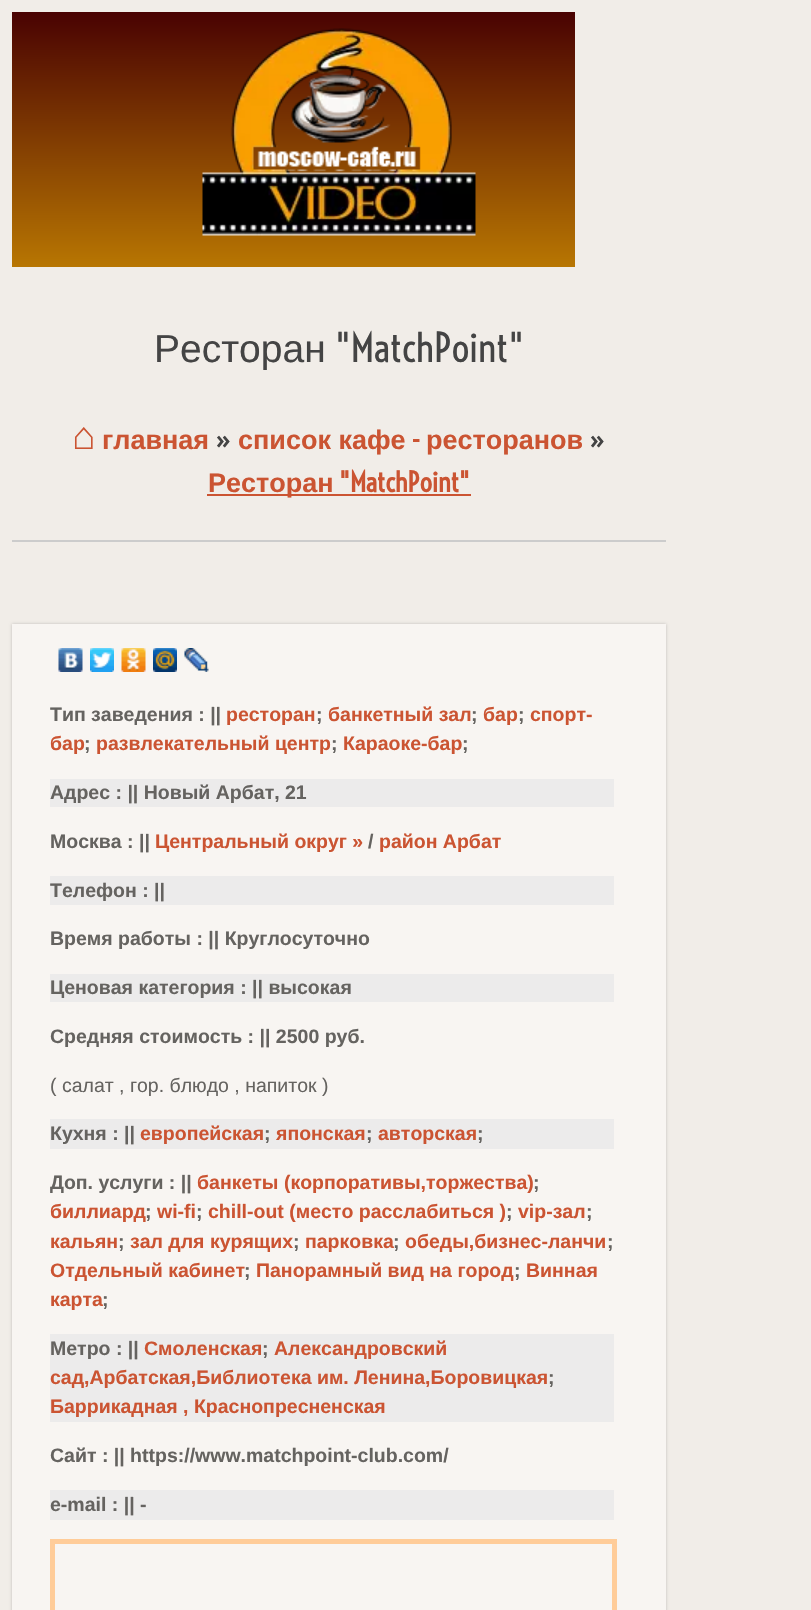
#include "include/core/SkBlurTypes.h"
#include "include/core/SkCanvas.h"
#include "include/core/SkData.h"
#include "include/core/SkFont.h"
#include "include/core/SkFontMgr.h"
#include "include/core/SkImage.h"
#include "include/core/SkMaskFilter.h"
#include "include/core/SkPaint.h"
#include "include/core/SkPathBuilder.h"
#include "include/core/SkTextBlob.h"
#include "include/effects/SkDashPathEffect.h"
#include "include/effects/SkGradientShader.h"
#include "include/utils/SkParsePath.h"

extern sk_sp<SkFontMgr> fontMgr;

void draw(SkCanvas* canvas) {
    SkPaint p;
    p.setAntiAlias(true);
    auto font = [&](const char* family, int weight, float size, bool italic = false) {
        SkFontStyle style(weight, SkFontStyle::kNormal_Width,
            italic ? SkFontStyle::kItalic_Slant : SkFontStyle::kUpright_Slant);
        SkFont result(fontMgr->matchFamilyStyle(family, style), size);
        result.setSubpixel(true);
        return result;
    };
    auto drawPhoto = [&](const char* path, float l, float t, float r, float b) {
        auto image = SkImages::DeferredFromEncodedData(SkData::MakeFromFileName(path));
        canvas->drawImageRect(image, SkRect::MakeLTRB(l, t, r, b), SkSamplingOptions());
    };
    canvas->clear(0xFFF1EDE8);
    {
        const SkColor colors[] = {0xFFB87602, 0xFF490202};
        const float stops[] = {0, 1};
        const SkPoint ends[] = {{293, 267}, {293, 12}};
        p.setShader(SkGradientShader::MakeLinear(ends, colors, stops, 2, SkTileMode::kClamp));
        p.setAlpha(255);
    }
    canvas->drawRect(SkRect::MakeLTRB(12, 12, 575, 267), p);
    drawPhoto("media/1.png", 202, 28, 476, 236);
    p.setShader(nullptr);
    p.setColor(0xFFCCCCCC);
    canvas->drawRect(SkRect::MakeLTRB(12, 540, 666, 542), p);
    auto font1 = font("Liberation Sans", 400, 39);
    p.setColor(0xFF444444);
    canvas->drawString("Ресторан", 154, 362, font1, p);
    auto font2 = font("Voltaire", 400, 39);
    canvas->drawString("\"MatchPoint\"", 335, 362, font2, p);
    auto font3 = font("Liberation Sans", 700, 39);
    p.setColor(0xFFCB5432);
    canvas->drawString("⌂", 72, 449, font3, p);
    auto font4 = font("Liberation Sans", 700, 27);
    canvas->drawString("главная", 102, 449, font4, p);
    auto font5 = font("Voltaire", 700, 27);
    p.setColor(0xFF444444);
    canvas->drawString("»", 215, 449, font5, p);
    p.setColor(0xFFCB5432);
    canvas->drawString("список кафе", 238, 449, font4, p);
    canvas->drawString("-", 411, 449, font5, p);
    canvas->drawString("ресторанов", 426, 449, font4, p);
    p.setColor(0xFF444444);
    canvas->drawString("»", 589, 449, font5, p);
    p.setColor(0xFFCB5432);
    canvas->drawRect(SkRect::MakeLTRB(207, 494, 471, 496), p);
    canvas->drawString("Ресторан", 208, 492, font4, p);
    canvas->drawString("\"MatchPoint\"", 339, 492, font5, p);
    p.setColor(0x33000000);
    p.setMaskFilter(SkMaskFilter::MakeBlur(kNormal_SkBlurStyle, 1.5f));
    canvas->drawRect(SkRect::MakeLTRB(12, 624, 666, 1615), p);
    p.setMaskFilter(nullptr);
    p.setColor(0xFFF8F5F2);
    canvas->drawRect(SkRect::MakeLTRB(12, 624, 666, 1610), p);
    drawPhoto("media/2.png", 58, 648, 83, 672);
    drawPhoto("media/3.png", 90, 648, 114, 672);
    drawPhoto("media/4.png", 121, 648, 146, 672);
    drawPhoto("media/5.png", 153, 648, 177, 672);
    drawPhoto("media/6.png", 184, 648, 209, 672);
    auto font6 = font("Liberation Sans", 700, 19.5f);
    p.setColor(0xFF656360);
    canvas->drawString("Тип заведения : ||", 50, 721, font6, p);
    p.setColor(0xFFCB5432);
    canvas->drawString("ресторан", 226, 721, font6, p);
    p.setColor(0xFF656360);
    canvas->drawString(";", 316, 721, font6, p);
    p.setColor(0xFFCB5432);
    canvas->drawString("банкетный зал", 328, 721, font6, p);
    p.setColor(0xFF656360);
    canvas->drawString(";", 471, 721, font6, p);
    p.setColor(0xFFCB5432);
    canvas->drawString("бар", 483, 721, font6, p);
    p.setColor(0xFF656360);
    canvas->drawString(";", 518, 721, font6, p);
    p.setColor(0xFFCB5432);
    canvas->drawString("спорт-", 530, 721, font6, p);
    canvas->drawString("бар", 50, 750, font6, p);
    p.setColor(0xFF656360);
    canvas->drawString(";", 84, 750, font6, p);
    p.setColor(0xFFCB5432);
    canvas->drawString("развлекательный центр", 96, 750, font6, p);
    p.setColor(0xFF656360);
    canvas->drawString(";", 331, 750, font6, p);
    p.setColor(0xFFCB5432);
    canvas->drawString("Караоке-бар", 343, 750, font6, p);
    p.setColor(0xFF656360);
    canvas->drawString(";", 462, 750, font6, p);
    p.setColor(0xFFECEBEB);
    canvas->drawRect(SkRect::MakeLTRB(50, 779, 614, 807), p);
    p.setColor(0xFF656360);
    canvas->drawString("Адрес : || Новый Арбат, 21", 50, 799, font6, p);
    canvas->drawString("Москва : ||", 50, 848, font6, p);
    p.setColor(0xFFCB5432);
    canvas->drawString("Центральный округ »", 155, 848, font6, p);
    p.setColor(0xFF656360);
    canvas->drawString("/", 368, 848, font6, p);
    p.setColor(0xFFCB5432);
    canvas->drawString("район Арбат", 379, 848, font6, p);
    p.setColor(0xFFECEBEB);
    canvas->drawRect(SkRect::MakeLTRB(50, 876, 614, 905), p);
    p.setColor(0xFF656360);
    canvas->drawString("Телефон : ||", 50, 897, font6, p);
    canvas->drawString("Время работы : || Круглосуточно", 50, 945, font6, p);
    p.setColor(0xFFECEBEB);
    canvas->drawRect(SkRect::MakeLTRB(50, 974, 614, 1002), p);
    p.setColor(0xFF656360);
    canvas->drawString("Ценовая категория : || высокая", 50, 994, font6, p);
    canvas->drawString("Средняя стоимость : || 2500 руб.", 50, 1043, font6, p);
    auto font7 = font("Liberation Sans", 400, 19.5f);
    canvas->drawString("( салат , гор. блюдо , напиток )", 50, 1092, font7, p);
    p.setColor(0xFFECEBEB);
    canvas->drawRect(SkRect::MakeLTRB(50, 1119, 614, 1149), p);
    p.setColor(0xFF656360);
    canvas->drawString("Кухня : ||", 50, 1140, font6, p);
    p.setColor(0xFFCB5432);
    canvas->drawString("европейская", 140, 1140, font6, p);
    p.setColor(0xFF656360);
    canvas->drawString(";", 264, 1140, font6, p);
    p.setColor(0xFFCB5432);
    canvas->drawString("японская", 276, 1140, font6, p);
    p.setColor(0xFF656360);
    canvas->drawString(";", 366, 1140, font6, p);
    p.setColor(0xFFCB5432);
    canvas->drawString("авторская", 378, 1140, font6, p);
    p.setColor(0xFF656360);
    canvas->drawString(";", 477, 1140, font6, p);
    canvas->drawString("Доп. услуги : ||", 50, 1189, font6, p);
    p.setColor(0xFFCB5432);
    canvas->drawString("банкеты (корпоративы,торжества)", 197, 1189, font6, p);
    p.setColor(0xFF656360);
    canvas->drawString(";", 533, 1189, font6, p);
    p.setColor(0xFFCB5432);
    canvas->drawString("биллиард", 50, 1218, font6, p);
    p.setColor(0xFF656360);
    canvas->drawString(";", 145, 1218, font6, p);
    p.setColor(0xFFCB5432);
    canvas->drawString("wi-fi", 157, 1218, font6, p);
    p.setColor(0xFF656360);
    canvas->drawString(";", 196, 1218, font6, p);
    p.setColor(0xFFCB5432);
    canvas->drawString("chill-out (место расслабиться )", 208, 1218, font6, p);
    p.setColor(0xFF656360);
    canvas->drawString(";", 506, 1218, font6, p);
    p.setColor(0xFFCB5432);
    canvas->drawString("vip-зал", 518, 1218, font6, p);
    p.setColor(0xFF656360);
    canvas->drawString(";", 586, 1218, font6, p);
    p.setColor(0xFFCB5432);
    canvas->drawString("кальян", 50, 1248, font6, p);
    p.setColor(0xFF656360);
    canvas->drawString(";", 118, 1248, font6, p);
    p.setColor(0xFFCB5432);
    canvas->drawString("зал для курящих", 130, 1248, font6, p);
    p.setColor(0xFF656360);
    canvas->drawString(";", 293, 1248, font6, p);
    p.setColor(0xFFCB5432);
    canvas->drawString("парковка", 305, 1248, font6, p);
    p.setColor(0xFF656360);
    canvas->drawString(";", 393, 1248, font6, p);
    p.setColor(0xFFCB5432);
    canvas->drawString("обеды,бизнес-ланчи", 405, 1248, font6, p);
    p.setColor(0xFF656360);
    canvas->drawString(";", 607, 1248, font6, p);
    p.setColor(0xFFCB5432);
    canvas->drawString("Отдельный кабинет", 50, 1277, font6, p);
    p.setColor(0xFF656360);
    canvas->drawString(";", 244, 1277, font6, p);
    p.setColor(0xFFCB5432);
    canvas->drawString("Панорамный вид на город", 256, 1277, font6, p);
    p.setColor(0xFF656360);
    canvas->drawString(";", 514, 1277, font6, p);
    p.setColor(0xFFCB5432);
    canvas->drawString("Винная", 526, 1277, font6, p);
    canvas->drawString("карта", 50, 1306, font6, p);
    p.setColor(0xFF656360);
    canvas->drawString(";", 102, 1306, font6, p);
    p.setColor(0xFFECEBEB);
    canvas->drawRect(SkRect::MakeLTRB(50, 1334, 614, 1422), p);
    p.setColor(0xFF656360);
    canvas->drawString("Метро : ||", 50, 1355, font6, p);
    p.setColor(0xFFCB5432);
    canvas->drawString("Смоленская", 144, 1355, font6, p);
    p.setColor(0xFF656360);
    canvas->drawString(";", 262, 1355, font6, p);
    p.setColor(0xFFCB5432);
    canvas->drawString("Александровский", 274, 1355, font6, p);
    canvas->drawString("сад,Арбатская,Библиотека им. Ленина,Боровицкая", 50, 1384, font6, p);
    p.setColor(0xFF656360);
    canvas->drawString(";", 548, 1384, font6, p);
    p.setColor(0xFFCB5432);
    canvas->drawString("Баррикадная , Краснопресненская", 50, 1413, font6, p);
    p.setColor(0xFF656360);
    canvas->drawString("Сайт : || https://www.matchpoint-club.com/", 50, 1462, font6, p);
    p.setColor(0xFFECEBEB);
    canvas->drawRect(SkRect::MakeLTRB(50, 1490, 614, 1520), p);
    p.setColor(0xFF656360);
    canvas->drawString("e-mail : || -", 50, 1511, font6, p);
    p.setStyle(SkPaint::kStroke_Style);
    p.setStrokeWidth(5);
    p.setColor(0xFFFFCC99);
    canvas->drawRect(SkRect::MakeLTRB(52.5f, 1541.5f, 614.5f, 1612.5f), p);
}
